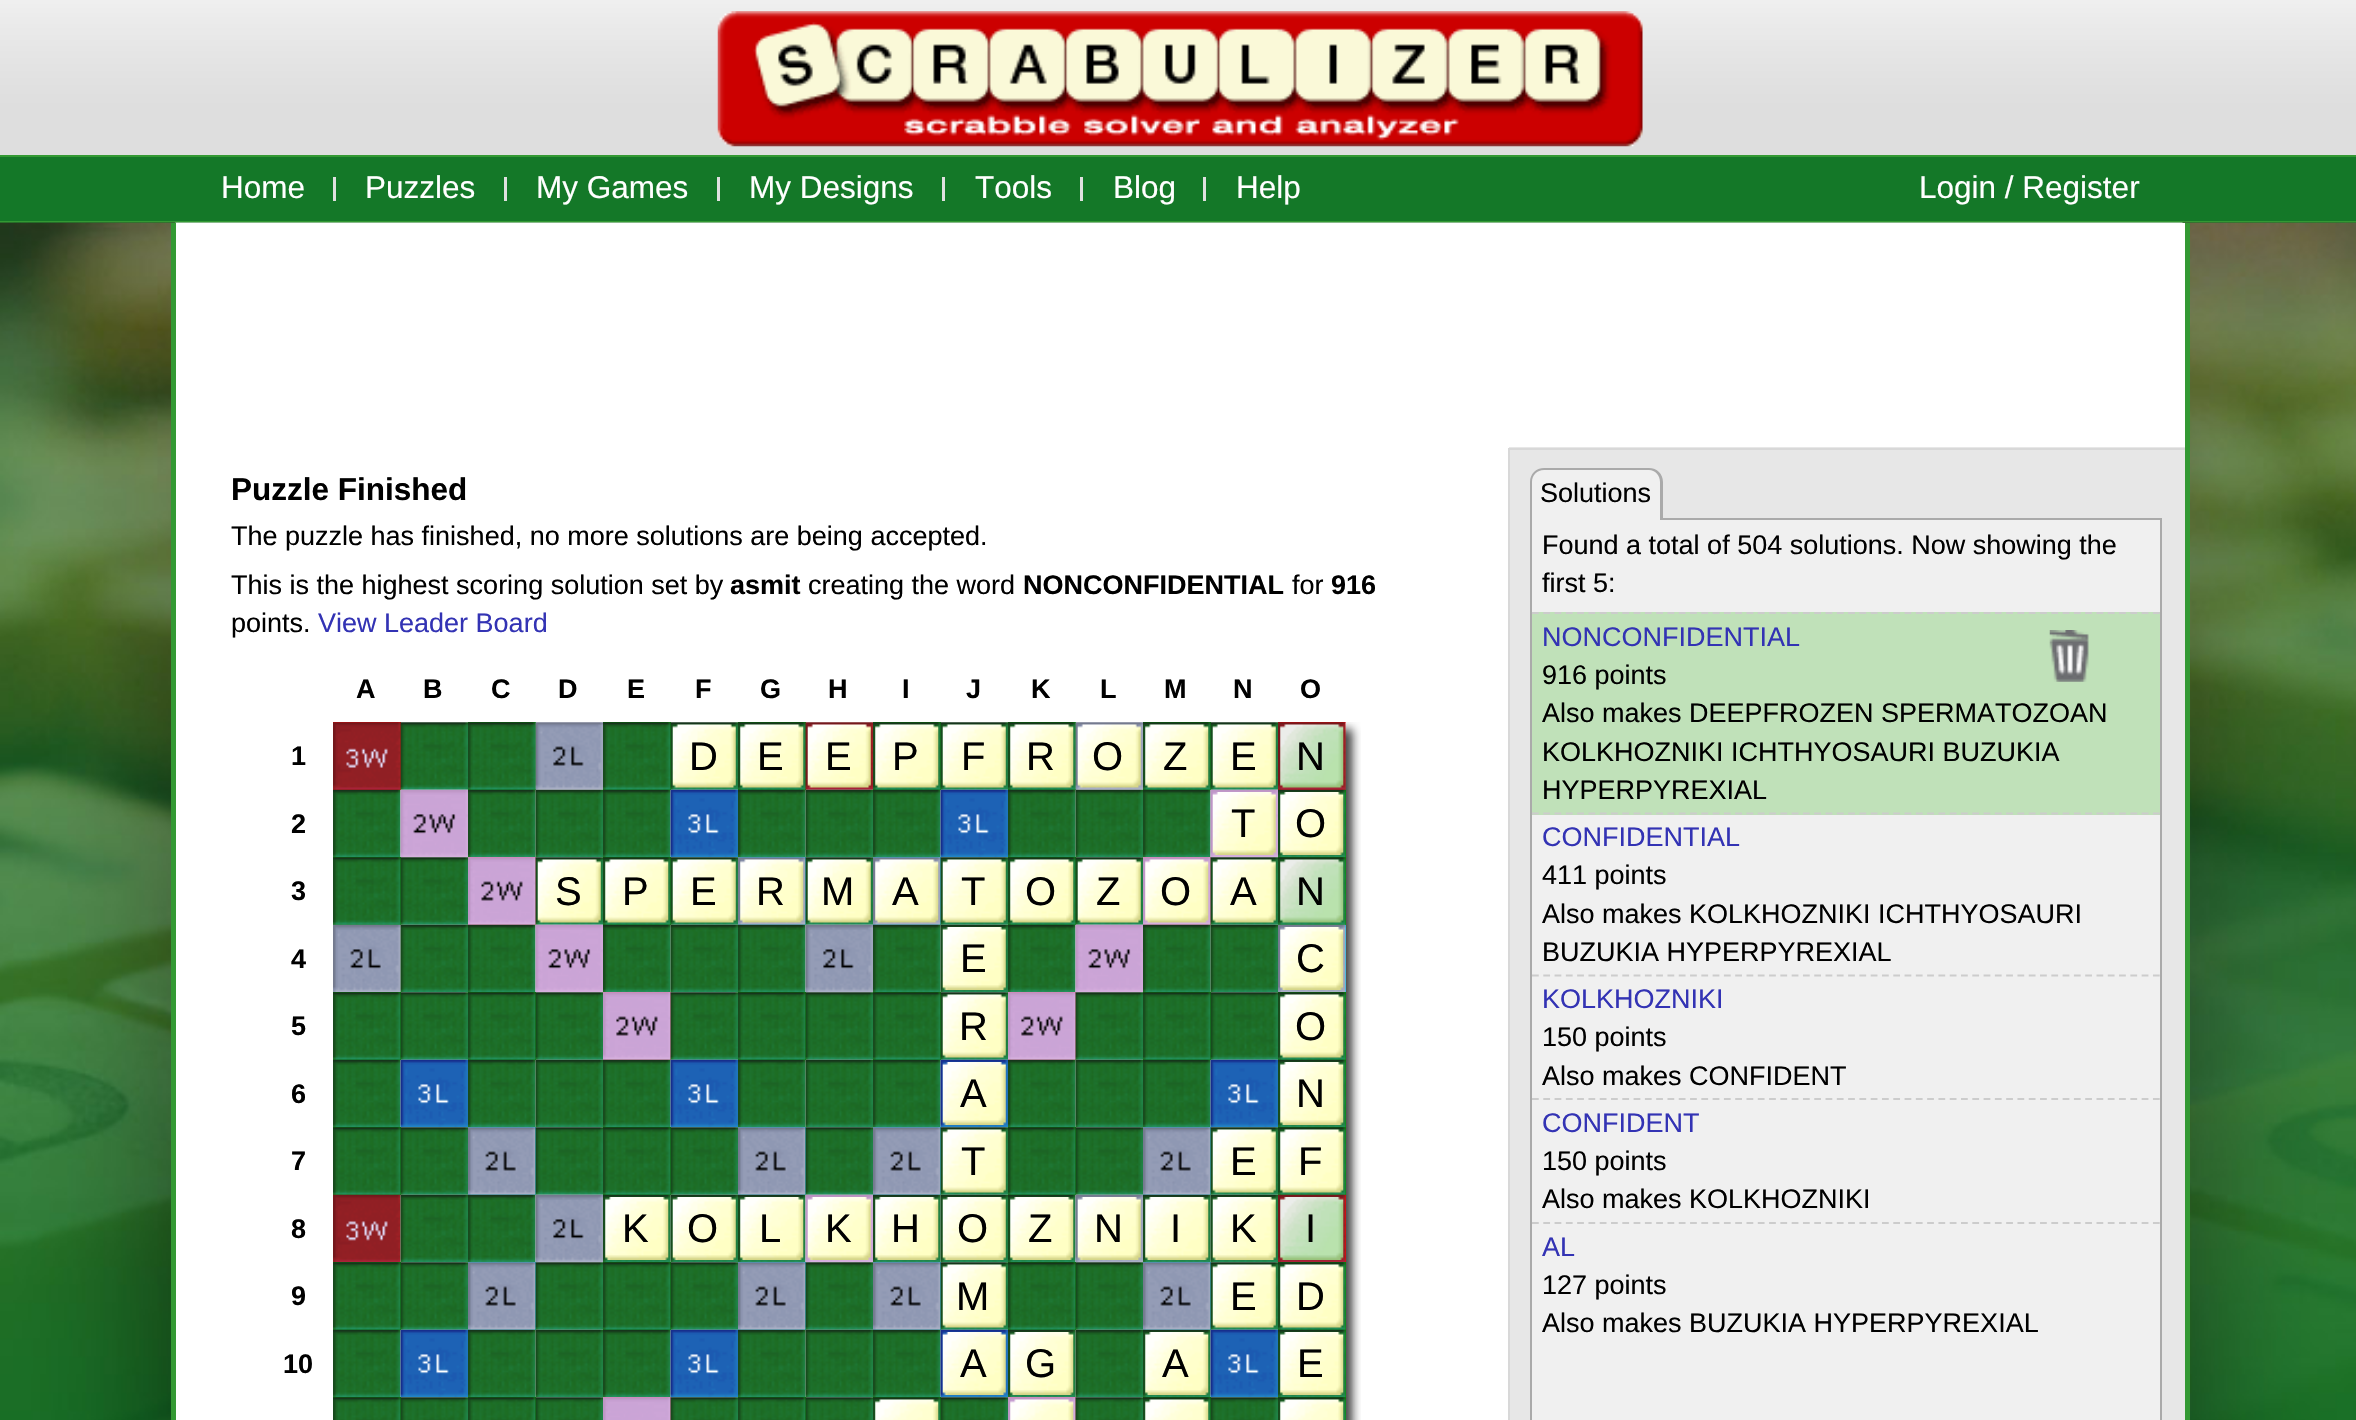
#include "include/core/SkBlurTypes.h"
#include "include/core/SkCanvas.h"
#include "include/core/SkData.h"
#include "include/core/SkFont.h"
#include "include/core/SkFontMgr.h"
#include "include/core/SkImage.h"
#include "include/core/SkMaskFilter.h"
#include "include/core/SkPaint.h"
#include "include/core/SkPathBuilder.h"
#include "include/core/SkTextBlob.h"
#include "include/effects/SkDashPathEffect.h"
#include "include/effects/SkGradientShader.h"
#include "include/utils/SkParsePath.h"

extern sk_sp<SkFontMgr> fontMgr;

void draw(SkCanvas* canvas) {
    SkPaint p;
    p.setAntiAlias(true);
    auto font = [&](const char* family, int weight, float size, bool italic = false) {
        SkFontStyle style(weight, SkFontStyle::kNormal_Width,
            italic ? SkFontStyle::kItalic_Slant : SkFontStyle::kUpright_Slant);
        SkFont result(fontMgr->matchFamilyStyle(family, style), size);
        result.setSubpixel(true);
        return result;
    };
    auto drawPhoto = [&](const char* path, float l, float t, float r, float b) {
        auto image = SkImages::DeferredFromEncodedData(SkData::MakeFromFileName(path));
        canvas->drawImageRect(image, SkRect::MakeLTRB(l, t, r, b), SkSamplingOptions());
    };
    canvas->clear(0xFFFFFFFF);
    drawPhoto("media/1.png", 0, 0, 2356, 155);
    drawPhoto("media/2.png", 717, 11, 1643, 147);
    {
        const struct { float l, t, r, b; SkColor color; } items[] = {
            {0, 157, 2356, 221, 0xFF147828},
            {0, 155, 2356, 157, 0xFF339933},
            {0, 221, 2356, 223, 0xFF339933},
            {333, 177, 336, 201, 0xFFE0E0E0},
        };
        for (auto [l, t, r, b, color] : items) {
            p.setColor(color);
            canvas->drawRect(SkRect::MakeLTRB(l, t, r, b), p);
        }
    }
    auto font1 = font("Liberation Sans", 400, 31.5f);
    p.setColor(0xFFFFFFFF);
    canvas->drawString("Home", 221, 198, font1, p);
    p.setColor(0xFFE0E0E0);
    canvas->drawRect(SkRect::MakeLTRB(504, 177, 507, 201), p);
    p.setColor(0xFFFFFFFF);
    canvas->drawString("Puzzles", 365, 198, font1, p);
    p.setColor(0xFFE0E0E0);
    canvas->drawRect(SkRect::MakeLTRB(717, 177, 720, 201), p);
    p.setColor(0xFFFFFFFF);
    canvas->drawString("My Games", 536, 198, font1, p);
    p.setColor(0xFFE0E0E0);
    canvas->drawRect(SkRect::MakeLTRB(942, 177, 945, 201), p);
    p.setColor(0xFFFFFFFF);
    canvas->drawString("My Designs", 749, 198, font1, p);
    p.setColor(0xFFE0E0E0);
    canvas->drawRect(SkRect::MakeLTRB(1080, 177, 1083, 201), p);
    p.setColor(0xFFFFFFFF);
    canvas->drawString("Tools", 975, 198, font1, p);
    p.setColor(0xFFE0E0E0);
    canvas->drawRect(SkRect::MakeLTRB(1203, 177, 1206, 201), p);
    p.setColor(0xFFFFFFFF);
    {
        const struct { const char* s; float x, y; } items[] = {
            {"Blog", 1113, 198},
            {"Help", 1236, 198},
            {"Login / Register", 1919, 198},
        };
        for (auto [s, x, y] : items) {
            canvas->drawString(s, x, y, font1, p);
        }
    }
    drawPhoto("media/3.png", 0, 222, 2356, 223);
    drawPhoto("media/4.png", 13, 222, 2345, 223);
    drawPhoto("media/5.png", 0, 222, 2356, 1420);
    {
        const struct { float l, t, r, b; SkColor color; } items[] = {
            {176, 223, 2185, 448, 0xFFFFFFFF},
            {2185, 223, 2190, 1420, 0xFF339933},
            {171, 223, 176, 1420, 0xFF339933},
            {1509, 447, 2185, 1420, 0xFFE7E7E7},
            {176, 448, 177, 1420, 0xFFFFFFFF},
            {1508, 448, 2185, 450, 0xFFD8D8D8},
            {1508, 448, 1510, 1420, 0xFFD8D8D8},
        };
        for (auto [l, t, r, b, color] : items) {
            p.setColor(color);
            canvas->drawRect(SkRect::MakeLTRB(l, t, r, b), p);
        }
    }
    auto font2 = font("Liberation Sans", 700, 31.5f);
    p.setColor(0xFF000000);
    canvas->drawString("Puzzle Finished", 231, 500, font2, p);
    auto font3 = font("Liberation Sans", 400, 27);
    canvas->drawString("The puzzle has finished, no more solutions are being accepted.", 231, 545, font3, p);
    canvas->drawString("This is the highest scoring solution set by", 231, 594, font3, p);
    auto font4 = font("Liberation Sans", 700, 27);
    canvas->drawString("asmit", 730, 594, font4, p);
    canvas->drawString("creating the word", 808, 594, font3, p);
    canvas->drawString("NONCONFIDENTIAL", 1023, 594, font4, p);
    canvas->drawString("for", 1292, 594, font3, p);
    canvas->drawString("916", 1331, 594, font4, p);
    canvas->drawString("points.", 231, 632, font3, p);
    p.setColor(0xFF3333B4);
    canvas->drawString("View Leader Board", 318, 632, font3, p);
    p.setColor(0xFF000000);
    {
        const struct { const char* s; float x, y; } items[] = {
            {"A", 356, 698},
            {"B", 423, 698},
            {"C", 491, 698},
            {"D", 558, 698},
            {"E", 627, 698},
            {"F", 695, 698},
            {"G", 760, 698},
            {"H", 828, 698},
            {"I", 902, 698},
            {"J", 966, 698},
            {"K", 1031, 698},
            {"L", 1100, 698},
            {"M", 1164, 698},
            {"N", 1233, 698},
            {"O", 1300, 698},
            {"1", 291, 765},
        };
        for (auto [s, x, y] : items) {
            canvas->drawString(s, x, y, font4, p);
        }
    }
    p.setColor(0xFFFF0000);
    canvas->drawRect(SkRect::MakeLTRB(333, 722, 401, 790), p);
    drawPhoto("media/6.png", 333, 722, 401, 790);
    drawPhoto("media/7.png", 400, 722, 468, 790);
    p.setColor(0xFF009900);
    canvas->drawRect(SkRect::MakeLTRB(468, 722, 536, 790), p);
    drawPhoto("media/8.png", 468, 722, 536, 790);
    drawPhoto("media/9.png", 535, 722, 603, 790);
    canvas->drawRect(SkRect::MakeLTRB(603, 722, 671, 790), p);
    drawPhoto("media/10.png", 603, 722, 671, 790);
    drawPhoto("media/11.png", 670, 722, 738, 790);
    drawPhoto("media/12.png", 672, 724, 736, 788);
    auto font5 = font("Liberation Sans", 400, 40);
    p.setColor(0xFF000000);
    canvas->drawString("D", 689, 770, font5, p);
    p.setColor(0xFF009900);
    canvas->drawRect(SkRect::MakeLTRB(738, 722, 806, 790), p);
    drawPhoto("media/13.png", 738, 722, 806, 790);
    drawPhoto("media/14.png", 740, 724, 804, 788);
    p.setColor(0xFF000000);
    canvas->drawString("E", 757, 770, font5, p);
    drawPhoto("media/15.png", 805, 722, 873, 790);
    drawPhoto("media/16.png", 807, 724, 871, 788);
    canvas->drawString("E", 825, 770, font5, p);
    p.setColor(0xFF009900);
    canvas->drawRect(SkRect::MakeLTRB(873, 722, 941, 790), p);
    drawPhoto("media/10.png", 873, 722, 941, 790);
    drawPhoto("media/17.png", 875, 724, 939, 788);
    p.setColor(0xFF000000);
    canvas->drawString("P", 892, 770, font5, p);
    drawPhoto("media/11.png", 940, 722, 1008, 790);
    drawPhoto("media/18.png", 942, 724, 1006, 788);
    canvas->drawString("F", 961, 770, font5, p);
    p.setColor(0xFF009900);
    canvas->drawRect(SkRect::MakeLTRB(1008, 722, 1076, 790), p);
    drawPhoto("media/19.png", 1008, 722, 1076, 790);
    drawPhoto("media/20.png", 1010, 724, 1074, 788);
    p.setColor(0xFF000000);
    canvas->drawString("R", 1026, 770, font5, p);
    drawPhoto("media/9.png", 1075, 722, 1143, 790);
    drawPhoto("media/21.png", 1077, 724, 1141, 788);
    canvas->drawString("O", 1092, 770, font5, p);
    p.setColor(0xFF009900);
    canvas->drawRect(SkRect::MakeLTRB(1143, 722, 1211, 790), p);
    drawPhoto("media/22.png", 1143, 722, 1211, 790);
    drawPhoto("media/23.png", 1145, 724, 1209, 788);
    p.setColor(0xFF000000);
    canvas->drawString("Z", 1163, 770, font5, p);
    drawPhoto("media/24.png", 1210, 722, 1278, 790);
    drawPhoto("media/25.png", 1212, 724, 1276, 788);
    canvas->drawString("E", 1230, 770, font5, p);
    p.setColor(0xFFFF0000);
    canvas->drawRect(SkRect::MakeLTRB(1278, 722, 1346, 790), p);
    drawPhoto("media/26.png", 1278, 722, 1346, 790);
    drawPhoto("media/27.png", 1280, 724, 1344, 788);
    p.setColor(0xFF000000);
    canvas->drawString("N", 1296, 770, font5, p);
    drawPhoto("media/28.png", 1345, 722, 1361, 1420);
    canvas->drawString("2", 291, 833, font4, p);
    drawPhoto("media/29.png", 333, 789, 401, 857);
    drawPhoto("media/30.png", 400, 789, 468, 858);
    drawPhoto("media/31.png", 468, 789, 536, 857);
    drawPhoto("media/32.png", 535, 789, 603, 858);
    drawPhoto("media/33.png", 603, 789, 671, 857);
    drawPhoto("media/34.png", 670, 789, 738, 858);
    drawPhoto("media/35.png", 738, 789, 806, 857);
    drawPhoto("media/36.png", 805, 789, 873, 858);
    drawPhoto("media/33.png", 873, 789, 941, 857);
    drawPhoto("media/34.png", 940, 789, 1008, 858);
    drawPhoto("media/37.png", 1008, 789, 1076, 857);
    drawPhoto("media/32.png", 1075, 789, 1143, 858);
    drawPhoto("media/38.png", 1143, 789, 1211, 857);
    drawPhoto("media/39.png", 1210, 789, 1278, 858);
    drawPhoto("media/40.png", 1212, 792, 1276, 855);
    canvas->drawString("T", 1231, 837, font5, p);
    p.setColor(0xFF009900);
    canvas->drawRect(SkRect::MakeLTRB(1345, 790, 1346, 857), p);
    drawPhoto("media/41.png", 1278, 789, 1346, 857);
    drawPhoto("media/42.png", 1280, 792, 1344, 855);
    p.setColor(0xFF000000);
    canvas->drawString("O", 1295, 837, font5, p);
    canvas->drawString("3", 291, 900, font4, p);
    p.setColor(0xFF009900);
    canvas->drawRect(SkRect::MakeLTRB(333, 857, 401, 925), p);
    drawPhoto("media/22.png", 333, 857, 401, 925);
    drawPhoto("media/11.png", 400, 857, 468, 925);
    p.setColor(0xFFFF6699);
    canvas->drawRect(SkRect::MakeLTRB(468, 857, 536, 925), p);
    drawPhoto("media/43.png", 468, 857, 536, 925);
    drawPhoto("media/44.png", 535, 857, 603, 925);
    drawPhoto("media/45.png", 537, 859, 601, 923);
    p.setColor(0xFF000000);
    canvas->drawString("S", 555, 905, font5, p);
    p.setColor(0xFF009900);
    canvas->drawRect(SkRect::MakeLTRB(603, 857, 671, 925), p);
    drawPhoto("media/10.png", 603, 857, 671, 925);
    drawPhoto("media/17.png", 605, 859, 669, 923);
    p.setColor(0xFF000000);
    canvas->drawString("P", 622, 905, font5, p);
    drawPhoto("media/11.png", 670, 857, 738, 925);
    drawPhoto("media/12.png", 672, 859, 736, 923);
    canvas->drawString("E", 690, 905, font5, p);
    p.setColor(0xFF00CCFF);
    canvas->drawRect(SkRect::MakeLTRB(738, 857, 806, 925), p);
    drawPhoto("media/46.png", 738, 857, 806, 925);
    drawPhoto("media/47.png", 740, 859, 804, 923);
    p.setColor(0xFF000000);
    canvas->drawString("R", 756, 905, font5, p);
    drawPhoto("media/48.png", 805, 857, 873, 925);
    drawPhoto("media/45.png", 807, 859, 871, 923);
    canvas->drawString("M", 821, 905, font5, p);
    p.setColor(0xFF00CCFF);
    canvas->drawRect(SkRect::MakeLTRB(873, 857, 941, 925), p);
    drawPhoto("media/49.png", 873, 857, 941, 925);
    drawPhoto("media/50.png", 875, 859, 939, 923);
    p.setColor(0xFF000000);
    canvas->drawString("A", 892, 905, font5, p);
    drawPhoto("media/51.png", 940, 857, 1008, 925);
    drawPhoto("media/18.png", 942, 859, 1006, 923);
    canvas->drawString("T", 961, 905, font5, p);
    p.setColor(0xFF009900);
    canvas->drawRect(SkRect::MakeLTRB(1008, 857, 1076, 925), p);
    drawPhoto("media/19.png", 1008, 857, 1076, 925);
    drawPhoto("media/20.png", 1010, 859, 1074, 923);
    p.setColor(0xFF000000);
    canvas->drawString("O", 1025, 905, font5, p);
    drawPhoto("media/52.png", 1075, 857, 1143, 925);
    drawPhoto("media/53.png", 1077, 859, 1141, 923);
    canvas->drawString("Z", 1096, 905, font5, p);
    p.setColor(0xFFFF6699);
    canvas->drawRect(SkRect::MakeLTRB(1143, 857, 1211, 925), p);
    drawPhoto("media/54.png", 1143, 857, 1211, 925);
    drawPhoto("media/55.png", 1145, 859, 1209, 923);
    p.setColor(0xFF000000);
    canvas->drawString("O", 1160, 905, font5, p);
    drawPhoto("media/56.png", 1210, 857, 1278, 925);
    drawPhoto("media/25.png", 1212, 859, 1276, 923);
    canvas->drawString("A", 1230, 905, font5, p);
    p.setColor(0xFF009900);
    canvas->drawRect(SkRect::MakeLTRB(1278, 857, 1346, 925), p);
    drawPhoto("media/10.png", 1278, 857, 1346, 925);
    drawPhoto("media/57.png", 1280, 859, 1344, 923);
    p.setColor(0xFF000000);
    canvas->drawString("N", 1296, 905, font5, p);
    canvas->drawString("4", 291, 968, font4, p);
    drawPhoto("media/58.png", 333, 924, 401, 992);
    drawPhoto("media/59.png", 400, 924, 468, 993);
    drawPhoto("media/60.png", 468, 924, 536, 992);
    drawPhoto("media/61.png", 535, 924, 603, 993);
    drawPhoto("media/33.png", 603, 924, 671, 992);
    drawPhoto("media/62.png", 670, 924, 738, 993);
    drawPhoto("media/63.png", 738, 924, 806, 992);
    drawPhoto("media/64.png", 805, 924, 873, 993);
    drawPhoto("media/65.png", 873, 924, 941, 992);
    drawPhoto("media/66.png", 940, 924, 1008, 993);
    drawPhoto("media/67.png", 942, 927, 1006, 990);
    canvas->drawString("E", 960, 972, font5, p);
    drawPhoto("media/68.png", 1008, 924, 1076, 992);
    drawPhoto("media/69.png", 1075, 924, 1143, 993);
    drawPhoto("media/70.png", 1143, 924, 1211, 992);
    drawPhoto("media/71.png", 1210, 924, 1278, 993);
    p.setColor(0xFF00CCFF);
    canvas->drawRect(SkRect::MakeLTRB(1345, 925, 1346, 992), p);
    drawPhoto("media/72.png", 1278, 924, 1346, 992);
    drawPhoto("media/73.png", 1280, 927, 1344, 990);
    p.setColor(0xFF000000);
    canvas->drawString("C", 1296, 972, font5, p);
    canvas->drawString("5", 291, 1035, font4, p);
    p.setColor(0xFF009900);
    canvas->drawRect(SkRect::MakeLTRB(333, 992, 401, 1060), p);
    drawPhoto("media/22.png", 333, 992, 401, 1060);
    drawPhoto("media/11.png", 400, 992, 468, 1060);
    canvas->drawRect(SkRect::MakeLTRB(468, 992, 536, 1060), p);
    drawPhoto("media/8.png", 468, 992, 536, 1060);
    drawPhoto("media/52.png", 535, 992, 603, 1060);
    p.setColor(0xFFFF6699);
    canvas->drawRect(SkRect::MakeLTRB(603, 992, 671, 1060), p);
    drawPhoto("media/74.png", 603, 992, 671, 1060);
    drawPhoto("media/75.png", 670, 992, 738, 1060);
    p.setColor(0xFF009900);
    canvas->drawRect(SkRect::MakeLTRB(738, 992, 806, 1060), p);
    drawPhoto("media/13.png", 738, 992, 806, 1060);
    drawPhoto("media/52.png", 805, 992, 873, 1060);
    canvas->drawRect(SkRect::MakeLTRB(873, 992, 941, 1060), p);
    drawPhoto("media/10.png", 873, 992, 941, 1060);
    drawPhoto("media/11.png", 940, 992, 1008, 1060);
    drawPhoto("media/18.png", 942, 994, 1006, 1058);
    p.setColor(0xFF000000);
    canvas->drawString("R", 959, 1040, font5, p);
    p.setColor(0xFFFF6699);
    canvas->drawRect(SkRect::MakeLTRB(1008, 992, 1076, 1060), p);
    drawPhoto("media/76.png", 1008, 992, 1076, 1060);
    drawPhoto("media/44.png", 1075, 992, 1143, 1060);
    p.setColor(0xFF009900);
    canvas->drawRect(SkRect::MakeLTRB(1143, 992, 1211, 1060), p);
    drawPhoto("media/22.png", 1143, 992, 1211, 1060);
    drawPhoto("media/24.png", 1210, 992, 1278, 1060);
    canvas->drawRect(SkRect::MakeLTRB(1278, 992, 1346, 1060), p);
    drawPhoto("media/10.png", 1278, 992, 1346, 1060);
    drawPhoto("media/77.png", 1280, 994, 1344, 1058);
    p.setColor(0xFF000000);
    canvas->drawString("O", 1295, 1040, font5, p);
    canvas->drawString("6", 291, 1103, font4, p);
    drawPhoto("media/38.png", 333, 1059, 401, 1127);
    drawPhoto("media/34.png", 400, 1059, 468, 1128);
    drawPhoto("media/78.png", 468, 1059, 536, 1127);
    drawPhoto("media/79.png", 535, 1059, 603, 1128);
    drawPhoto("media/80.png", 603, 1059, 671, 1127);
    drawPhoto("media/81.png", 670, 1059, 738, 1128);
    drawPhoto("media/82.png", 738, 1059, 806, 1127);
    drawPhoto("media/79.png", 805, 1059, 873, 1128);
    drawPhoto("media/33.png", 873, 1059, 941, 1127);
    drawPhoto("media/34.png", 940, 1059, 1008, 1128);
    drawPhoto("media/83.png", 942, 1062, 1006, 1125);
    canvas->drawString("A", 960, 1107, font5, p);
    drawPhoto("media/84.png", 1008, 1059, 1076, 1127);
    drawPhoto("media/85.png", 1075, 1059, 1143, 1128);
    drawPhoto("media/38.png", 1143, 1059, 1211, 1127);
    drawPhoto("media/86.png", 1210, 1059, 1278, 1128);
    p.setColor(0xFF009900);
    canvas->drawRect(SkRect::MakeLTRB(1345, 1060, 1346, 1127), p);
    drawPhoto("media/87.png", 1278, 1059, 1346, 1127);
    drawPhoto("media/42.png", 1280, 1062, 1344, 1125);
    p.setColor(0xFF000000);
    canvas->drawString("N", 1296, 1107, font5, p);
    canvas->drawString("7", 291, 1170, font4, p);
    p.setColor(0xFF009900);
    canvas->drawRect(SkRect::MakeLTRB(333, 1127, 401, 1195), p);
    drawPhoto("media/88.png", 333, 1127, 401, 1195);
    drawPhoto("media/89.png", 400, 1127, 468, 1195);
    p.setColor(0xFF00CCFF);
    canvas->drawRect(SkRect::MakeLTRB(468, 1127, 536, 1195), p);
    drawPhoto("media/90.png", 468, 1127, 536, 1195);
    drawPhoto("media/91.png", 535, 1127, 603, 1195);
    p.setColor(0xFF009900);
    canvas->drawRect(SkRect::MakeLTRB(603, 1127, 671, 1195), p);
    drawPhoto("media/92.png", 603, 1127, 671, 1195);
    drawPhoto("media/89.png", 670, 1127, 738, 1195);
    p.setColor(0xFF00CCFF);
    canvas->drawRect(SkRect::MakeLTRB(738, 1127, 806, 1195), p);
    drawPhoto("media/93.png", 738, 1127, 806, 1195);
    drawPhoto("media/91.png", 805, 1127, 873, 1195);
    canvas->drawRect(SkRect::MakeLTRB(873, 1127, 941, 1195), p);
    drawPhoto("media/94.png", 873, 1127, 941, 1195);
    drawPhoto("media/95.png", 940, 1127, 1008, 1195);
    drawPhoto("media/96.png", 942, 1129, 1006, 1193);
    p.setColor(0xFF000000);
    canvas->drawString("T", 961, 1175, font5, p);
    p.setColor(0xFF009900);
    canvas->drawRect(SkRect::MakeLTRB(1008, 1127, 1076, 1195), p);
    drawPhoto("media/97.png", 1008, 1127, 1076, 1195);
    drawPhoto("media/98.png", 1075, 1127, 1143, 1195);
    p.setColor(0xFF00CCFF);
    canvas->drawRect(SkRect::MakeLTRB(1143, 1127, 1211, 1195), p);
    drawPhoto("media/99.png", 1143, 1127, 1211, 1195);
    drawPhoto("media/100.png", 1210, 1127, 1278, 1195);
    drawPhoto("media/101.png", 1212, 1129, 1276, 1193);
    p.setColor(0xFF000000);
    canvas->drawString("E", 1230, 1175, font5, p);
    p.setColor(0xFF009900);
    canvas->drawRect(SkRect::MakeLTRB(1278, 1127, 1346, 1195), p);
    drawPhoto("media/92.png", 1278, 1127, 1346, 1195);
    drawPhoto("media/102.png", 1280, 1129, 1344, 1193);
    p.setColor(0xFF000000);
    canvas->drawString("F", 1298, 1175, font5, p);
    canvas->drawString("8", 291, 1238, font4, p);
    drawPhoto("media/103.png", 333, 1194, 401, 1262);
    drawPhoto("media/104.png", 400, 1194, 468, 1263);
    drawPhoto("media/105.png", 468, 1194, 536, 1262);
    drawPhoto("media/64.png", 535, 1194, 603, 1263);
    drawPhoto("media/33.png", 603, 1194, 671, 1262);
    drawPhoto("media/106.png", 605, 1197, 669, 1260);
    canvas->drawString("K", 622, 1242, font5, p);
    drawPhoto("media/62.png", 670, 1194, 738, 1263);
    drawPhoto("media/107.png", 672, 1197, 736, 1260);
    canvas->drawString("O", 687, 1242, font5, p);
    drawPhoto("media/63.png", 738, 1194, 806, 1262);
    drawPhoto("media/108.png", 740, 1197, 804, 1260);
    canvas->drawString("L", 759, 1242, font5, p);
    drawPhoto("media/109.png", 805, 1194, 873, 1263);
    drawPhoto("media/110.png", 807, 1197, 871, 1260);
    canvas->drawString("K", 825, 1242, font5, p);
    drawPhoto("media/65.png", 873, 1194, 941, 1262);
    drawPhoto("media/106.png", 875, 1197, 939, 1260);
    canvas->drawString("H", 891, 1242, font5, p);
    drawPhoto("media/66.png", 940, 1194, 1008, 1263);
    drawPhoto("media/67.png", 942, 1197, 1006, 1260);
    canvas->drawString("O", 957, 1242, font5, p);
    drawPhoto("media/68.png", 1008, 1194, 1076, 1262);
    drawPhoto("media/108.png", 1010, 1197, 1074, 1260);
    canvas->drawString("Z", 1028, 1242, font5, p);
    drawPhoto("media/111.png", 1075, 1194, 1143, 1263);
    drawPhoto("media/112.png", 1077, 1197, 1141, 1260);
    canvas->drawString("N", 1094, 1242, font5, p);
    drawPhoto("media/113.png", 1143, 1194, 1211, 1262);
    drawPhoto("media/114.png", 1145, 1197, 1209, 1260);
    canvas->drawString("I", 1170, 1242, font5, p);
    drawPhoto("media/115.png", 1210, 1194, 1278, 1263);
    drawPhoto("media/116.png", 1212, 1197, 1276, 1260);
    canvas->drawString("K", 1230, 1242, font5, p);
    p.setColor(0xFFFF0000);
    canvas->drawRect(SkRect::MakeLTRB(1345, 1195, 1346, 1262), p);
    drawPhoto("media/117.png", 1278, 1194, 1346, 1262);
    drawPhoto("media/118.png", 1280, 1197, 1344, 1260);
    p.setColor(0xFF000000);
    canvas->drawString("I", 1305, 1242, font5, p);
    canvas->drawString("9", 291, 1305, font4, p);
    p.setColor(0xFF009900);
    canvas->drawRect(SkRect::MakeLTRB(333, 1262, 401, 1330), p);
    drawPhoto("media/22.png", 333, 1262, 401, 1330);
    drawPhoto("media/11.png", 400, 1262, 468, 1330);
    p.setColor(0xFF00CCFF);
    canvas->drawRect(SkRect::MakeLTRB(468, 1262, 536, 1330), p);
    drawPhoto("media/119.png", 468, 1262, 536, 1330);
    drawPhoto("media/48.png", 535, 1262, 603, 1330);
    p.setColor(0xFF009900);
    canvas->drawRect(SkRect::MakeLTRB(603, 1262, 671, 1330), p);
    drawPhoto("media/10.png", 603, 1262, 671, 1330);
    drawPhoto("media/11.png", 670, 1262, 738, 1330);
    p.setColor(0xFF00CCFF);
    canvas->drawRect(SkRect::MakeLTRB(738, 1262, 806, 1330), p);
    drawPhoto("media/46.png", 738, 1262, 806, 1330);
    drawPhoto("media/48.png", 805, 1262, 873, 1330);
    canvas->drawRect(SkRect::MakeLTRB(873, 1262, 941, 1330), p);
    drawPhoto("media/49.png", 873, 1262, 941, 1330);
    drawPhoto("media/51.png", 940, 1262, 1008, 1330);
    drawPhoto("media/18.png", 942, 1264, 1006, 1328);
    p.setColor(0xFF000000);
    canvas->drawString("M", 956, 1310, font5, p);
    p.setColor(0xFF009900);
    canvas->drawRect(SkRect::MakeLTRB(1008, 1262, 1076, 1330), p);
    drawPhoto("media/19.png", 1008, 1262, 1076, 1330);
    drawPhoto("media/52.png", 1075, 1262, 1143, 1330);
    p.setColor(0xFF00CCFF);
    canvas->drawRect(SkRect::MakeLTRB(1143, 1262, 1211, 1330), p);
    drawPhoto("media/120.png", 1143, 1262, 1211, 1330);
    drawPhoto("media/121.png", 1210, 1262, 1278, 1330);
    drawPhoto("media/25.png", 1212, 1264, 1276, 1328);
    p.setColor(0xFF000000);
    canvas->drawString("E", 1230, 1310, font5, p);
    p.setColor(0xFF009900);
    canvas->drawRect(SkRect::MakeLTRB(1278, 1262, 1346, 1330), p);
    drawPhoto("media/10.png", 1278, 1262, 1346, 1330);
    drawPhoto("media/77.png", 1280, 1264, 1344, 1328);
    p.setColor(0xFF000000);
    canvas->drawString("D", 1296, 1310, font5, p);
    canvas->drawString("10", 283, 1373, font4, p);
    drawPhoto("media/38.png", 333, 1329, 401, 1397);
    drawPhoto("media/34.png", 400, 1329, 468, 1398);
    drawPhoto("media/105.png", 468, 1329, 536, 1397);
    drawPhoto("media/122.png", 535, 1329, 603, 1398);
    drawPhoto("media/33.png", 603, 1329, 671, 1397);
    drawPhoto("media/34.png", 670, 1329, 738, 1398);
    drawPhoto("media/63.png", 738, 1329, 806, 1397);
    drawPhoto("media/122.png", 805, 1329, 873, 1398);
    drawPhoto("media/65.png", 873, 1329, 941, 1397);
    drawPhoto("media/123.png", 940, 1329, 1008, 1398);
    drawPhoto("media/83.png", 942, 1332, 1006, 1395);
    canvas->drawString("A", 960, 1377, font5, p);
    drawPhoto("media/68.png", 1008, 1329, 1076, 1397);
    drawPhoto("media/108.png", 1010, 1332, 1074, 1395);
    canvas->drawString("G", 1025, 1377, font5, p);
    drawPhoto("media/79.png", 1075, 1329, 1143, 1398);
    drawPhoto("media/113.png", 1143, 1329, 1211, 1397);
    drawPhoto("media/114.png", 1145, 1332, 1209, 1395);
    canvas->drawString("A", 1162, 1377, font5, p);
    drawPhoto("media/124.png", 1210, 1329, 1278, 1398);
    p.setColor(0xFF009900);
    canvas->drawRect(SkRect::MakeLTRB(1345, 1330, 1346, 1397), p);
    drawPhoto("media/87.png", 1278, 1329, 1346, 1397);
    drawPhoto("media/42.png", 1280, 1332, 1344, 1395);
    p.setColor(0xFF000000);
    canvas->drawString("E", 1297, 1377, font5, p);
    p.setColor(0xFF009900);
    canvas->drawRect(SkRect::MakeLTRB(333, 1397, 401, 1420), p);
    drawPhoto("media/125.png", 333, 1397, 401, 1420);
    drawPhoto("media/126.png", 400, 1397, 468, 1420);
    canvas->drawRect(SkRect::MakeLTRB(468, 1397, 536, 1420), p);
    drawPhoto("media/127.png", 468, 1397, 536, 1420);
    drawPhoto("media/128.png", 535, 1397, 603, 1420);
    p.setColor(0xFFFF6699);
    canvas->drawRect(SkRect::MakeLTRB(603, 1397, 671, 1420), p);
    drawPhoto("media/129.png", 603, 1397, 671, 1420);
    drawPhoto("media/130.png", 670, 1397, 738, 1420);
    p.setColor(0xFF009900);
    canvas->drawRect(SkRect::MakeLTRB(738, 1397, 806, 1420), p);
    drawPhoto("media/131.png", 738, 1397, 806, 1420);
    drawPhoto("media/128.png", 805, 1397, 873, 1420);
    canvas->drawRect(SkRect::MakeLTRB(873, 1397, 941, 1420), p);
    drawPhoto("media/132.png", 873, 1397, 941, 1420);
    drawPhoto("media/133.png", 875, 1399, 939, 1420);
    drawPhoto("media/126.png", 940, 1397, 1008, 1420);
    p.setColor(0xFFFF6699);
    canvas->drawRect(SkRect::MakeLTRB(1008, 1397, 1076, 1420), p);
    drawPhoto("media/134.png", 1008, 1397, 1076, 1420);
    drawPhoto("media/135.png", 1010, 1399, 1074, 1420);
    drawPhoto("media/136.png", 1075, 1397, 1143, 1420);
    p.setColor(0xFF009900);
    canvas->drawRect(SkRect::MakeLTRB(1143, 1397, 1211, 1420), p);
    drawPhoto("media/125.png", 1143, 1397, 1211, 1420);
    drawPhoto("media/137.png", 1145, 1399, 1209, 1420);
    drawPhoto("media/138.png", 1210, 1397, 1278, 1420);
    canvas->drawRect(SkRect::MakeLTRB(1278, 1397, 1346, 1420), p);
    drawPhoto("media/132.png", 1278, 1397, 1346, 1420);
    drawPhoto("media/139.png", 1280, 1399, 1344, 1420);
    p.setColor(0xFFF0F0F0);
    canvas->drawRect(SkRect::MakeLTRB(1531, 519, 2161, 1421), p);
    p.setStyle(SkPaint::kStroke_Style);
    p.setStrokeWidth(2);
    p.setColor(0xFFAAAAAA);
    canvas->drawRect(SkRect::MakeLTRB(1531, 519, 2161, 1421), p);
    p.setStyle(SkPaint::kFill_Style);
    p.setColor(0xFFF0F0F0);
    canvas->drawPath(SkPathBuilder().moveTo(1544, 468).lineTo(1649, 468).cubicTo(1656.5f, 468, 1663, 474.5f, 1663, 482).lineTo(1663, 520).lineTo(1530, 520).lineTo(1530, 482).cubicTo(1530, 474.5f, 1536.5f, 468, 1544, 468).close().detach(), p);
    p.setColor(0xFFAAAAAA);
    canvas->drawPath(SkPathBuilder(SkPathFillType::kEvenOdd).moveTo(1544, 468).lineTo(1649, 468).cubicTo(1657, 468, 1663, 474, 1663, 482).lineTo(1663, 520).lineTo(1530, 520).lineTo(1530, 482).cubicTo(1530, 474, 1536, 468, 1544, 468).close().moveTo(1544, 470).lineTo(1649, 470).cubicTo(1655, 470, 1660, 475, 1660, 482).lineTo(1660, 520).lineTo(1532, 520).lineTo(1532, 482).cubicTo(1532, 475, 1537, 470, 1544, 470).close().detach(), p);
    p.setColor(0xFF000000);
    {
        const struct { const char* s; float x, y; } items[] = {
            {"Solutions", 1540, 502},
            {"Found a total of 504 solutions. Now showing the", 1542, 554},
            {"first 5:", 1542, 592},
        };
        for (auto [s, x, y] : items) {
            canvas->drawString(s, x, y, font3, p);
        }
    }
    p.setColor(0xFFC0E1B9);
    canvas->drawRect(SkRect::MakeLTRB(1532, 612, 2160, 815), p);
    drawPhoto("media/140.png", 2049, 630, 2089, 682);
    p.setStyle(SkPaint::kStroke_Style);
    p.setStrokeWidth(2.2f);
    p.setColor(0xFFCCCCCC);
    p.setPathEffect(SkDashPathEffect::Make({{6.75f, 4.54f}}, 0));
    canvas->drawPath(SkPathBuilder().moveTo(1532, 613).lineTo(2160, 613).detach(), p);
    p.setPathEffect(nullptr);
    p.setStyle(SkPaint::kFill_Style);
    p.setColor(0xFF3333B4);
    canvas->drawString("NONCONFIDENTIAL", 1542, 646, font3, p);
    p.setColor(0xFF000000);
    {
        const struct { const char* s; float x, y; } items[] = {
            {"916 points", 1542, 684},
            {"Also makes DEEPFROZEN SPERMATOZOAN", 1542, 722},
            {"KOLKHOZNIKI ICHTHYOSAURI BUZUKIA", 1542, 761},
            {"HYPERPYREXIAL", 1542, 799},
        };
        for (auto [s, x, y] : items) {
            canvas->drawString(s, x, y, font3, p);
        }
    }
    p.setStyle(SkPaint::kStroke_Style);
    p.setColor(0xFFCCCCCC);
    p.setPathEffect(SkDashPathEffect::Make({{6.75f, 4.54f}}, 0));
    canvas->drawPath(SkPathBuilder().moveTo(1532, 813.5f).lineTo(2160, 813.5f).detach(), p);
    p.setPathEffect(nullptr);
    p.setStyle(SkPaint::kFill_Style);
    p.setColor(0xFF3333B4);
    canvas->drawString("CONFIDENTIAL", 1542, 846, font3, p);
    p.setColor(0xFF000000);
    {
        const struct { const char* s; float x, y; } items[] = {
            {"411 points", 1542, 884},
            {"Also makes KOLKHOZNIKI ICHTHYOSAURI", 1542, 923},
            {"BUZUKIA HYPERPYREXIAL", 1542, 961},
        };
        for (auto [s, x, y] : items) {
            canvas->drawString(s, x, y, font3, p);
        }
    }
    p.setStyle(SkPaint::kStroke_Style);
    p.setColor(0xFFCCCCCC);
    p.setPathEffect(SkDashPathEffect::Make({{6.75f, 4.54f}}, 0));
    canvas->drawPath(SkPathBuilder().moveTo(1532, 975.5f).lineTo(2160, 975.5f).detach(), p);
    p.setPathEffect(nullptr);
    p.setStyle(SkPaint::kFill_Style);
    p.setColor(0xFF3333B4);
    canvas->drawString("KOLKHOZNIKI", 1542, 1008, font3, p);
    p.setColor(0xFF000000);
    canvas->drawString("150 points", 1542, 1046, font3, p);
    canvas->drawString("Also makes CONFIDENT", 1542, 1085, font3, p);
    p.setStyle(SkPaint::kStroke_Style);
    p.setColor(0xFFCCCCCC);
    p.setPathEffect(SkDashPathEffect::Make({{6.75f, 4.54f}}, 0));
    canvas->drawPath(SkPathBuilder().moveTo(1532, 1099).lineTo(2160, 1099).detach(), p);
    p.setPathEffect(nullptr);
    p.setStyle(SkPaint::kFill_Style);
    p.setColor(0xFF3333B4);
    canvas->drawString("CONFIDENT", 1542, 1132, font3, p);
    p.setColor(0xFF000000);
    canvas->drawString("150 points", 1542, 1170, font3, p);
    canvas->drawString("Also makes KOLKHOZNIKI", 1542, 1208, font3, p);
    p.setStyle(SkPaint::kStroke_Style);
    p.setColor(0xFFCCCCCC);
    p.setPathEffect(SkDashPathEffect::Make({{6.75f, 4.54f}}, 0));
    canvas->drawPath(SkPathBuilder().moveTo(1532, 1223).lineTo(2160, 1223).detach(), p);
    p.setPathEffect(nullptr);
    p.setStyle(SkPaint::kFill_Style);
    p.setColor(0xFF3333B4);
    canvas->drawString("AL", 1542, 1256, font3, p);
    p.setColor(0xFF000000);
    canvas->drawString("127 points", 1542, 1294, font3, p);
    canvas->drawString("Also makes BUZUKIA HYPERPYREXIAL", 1542, 1332, font3, p);
}
